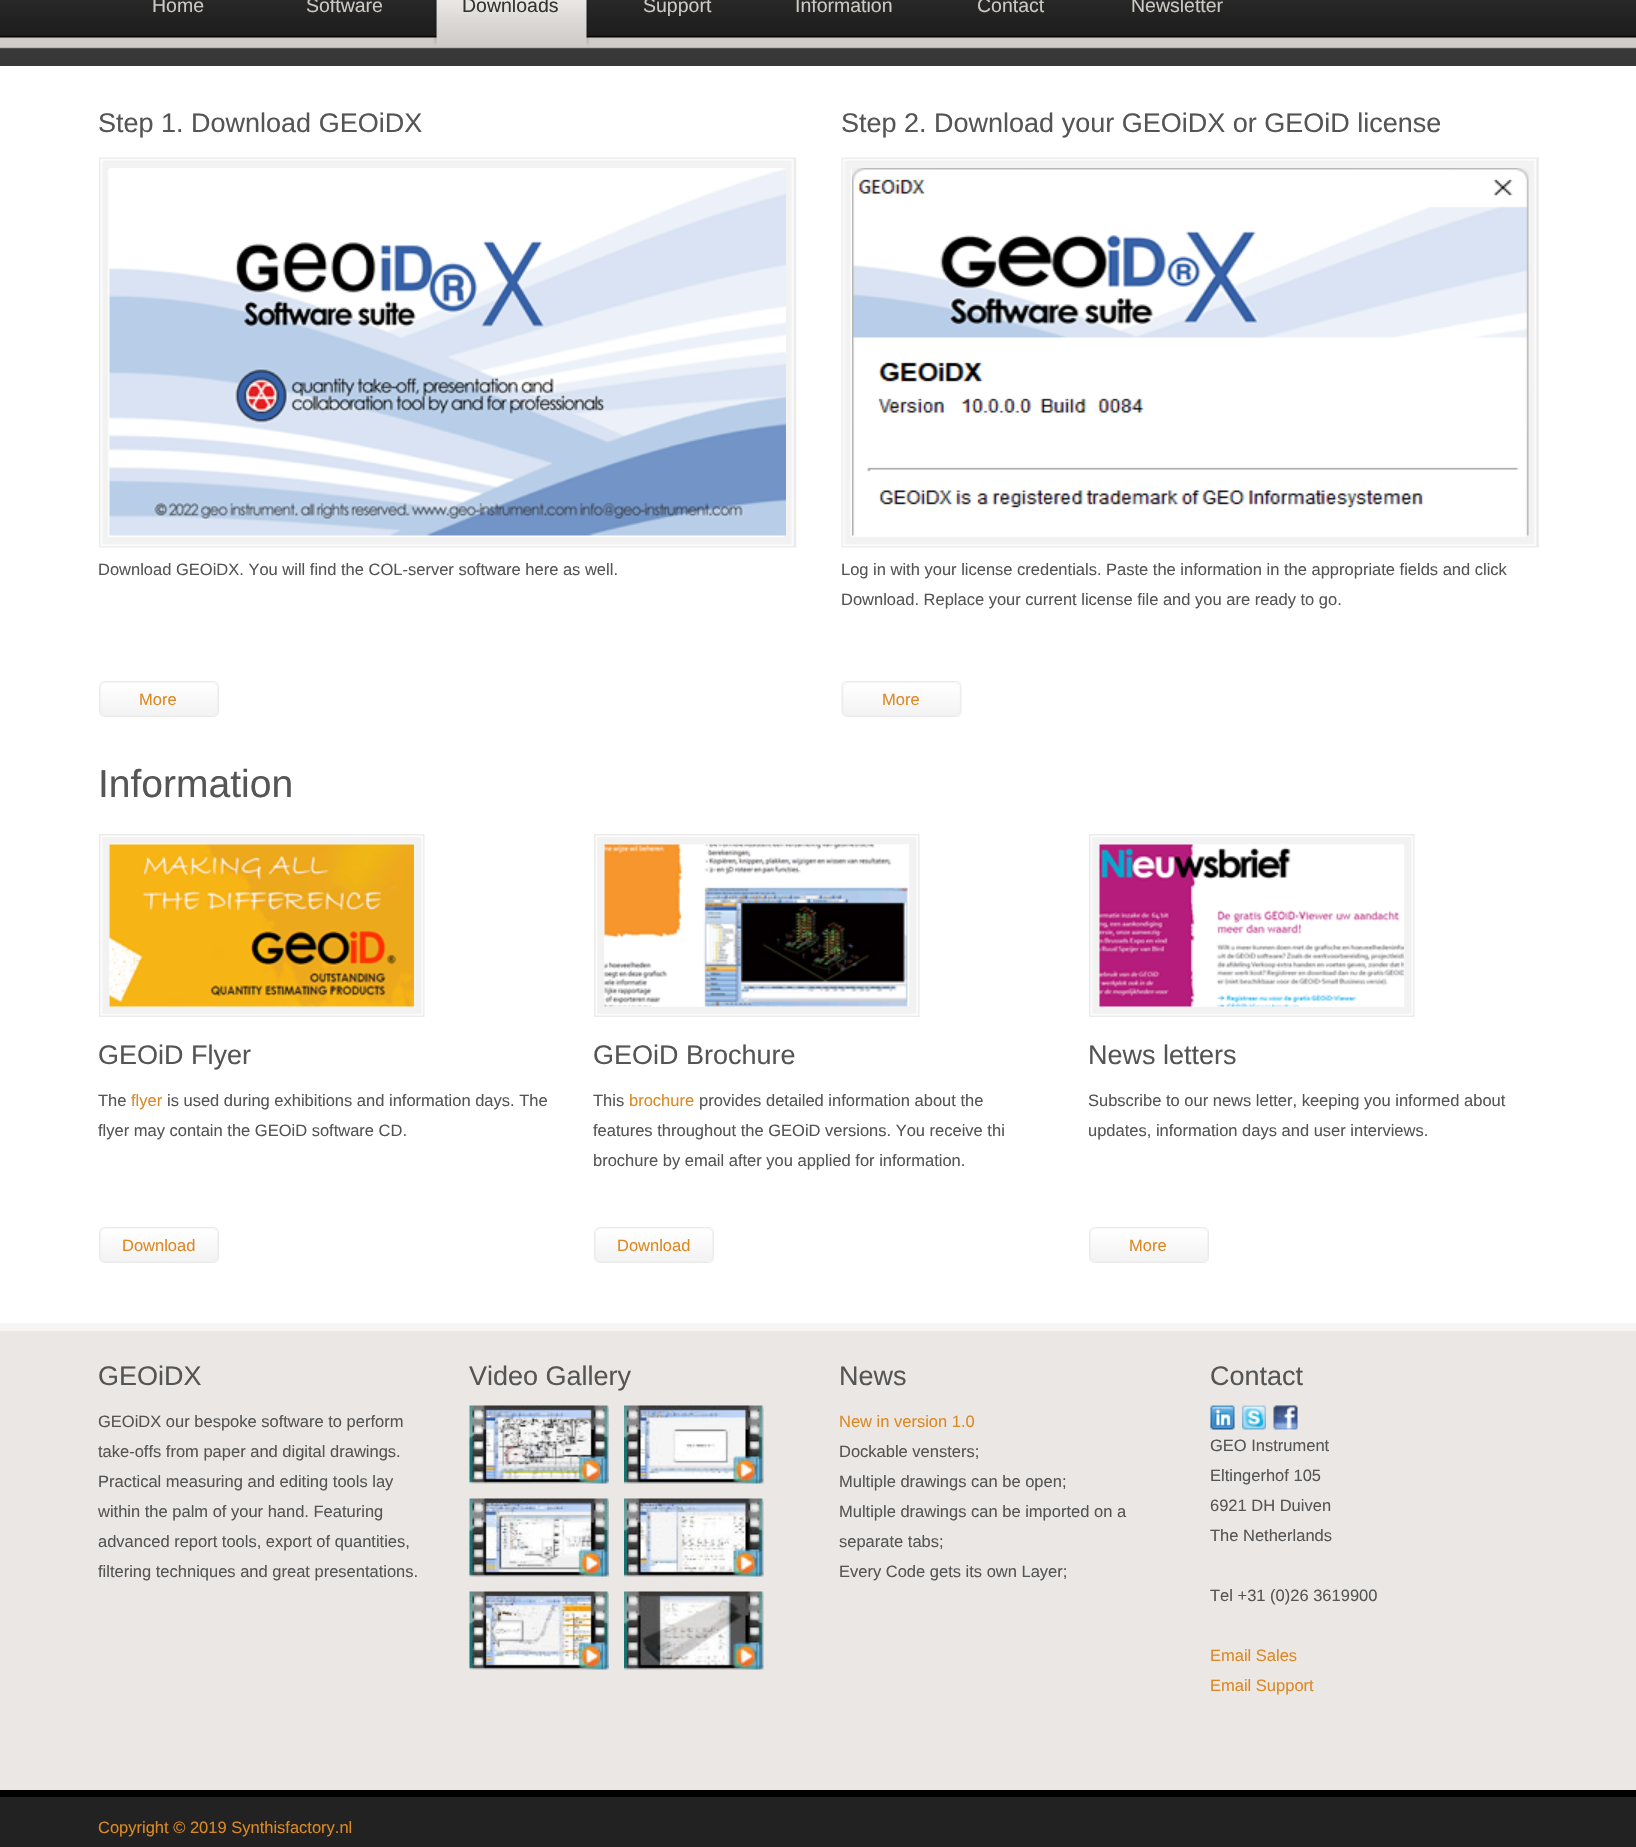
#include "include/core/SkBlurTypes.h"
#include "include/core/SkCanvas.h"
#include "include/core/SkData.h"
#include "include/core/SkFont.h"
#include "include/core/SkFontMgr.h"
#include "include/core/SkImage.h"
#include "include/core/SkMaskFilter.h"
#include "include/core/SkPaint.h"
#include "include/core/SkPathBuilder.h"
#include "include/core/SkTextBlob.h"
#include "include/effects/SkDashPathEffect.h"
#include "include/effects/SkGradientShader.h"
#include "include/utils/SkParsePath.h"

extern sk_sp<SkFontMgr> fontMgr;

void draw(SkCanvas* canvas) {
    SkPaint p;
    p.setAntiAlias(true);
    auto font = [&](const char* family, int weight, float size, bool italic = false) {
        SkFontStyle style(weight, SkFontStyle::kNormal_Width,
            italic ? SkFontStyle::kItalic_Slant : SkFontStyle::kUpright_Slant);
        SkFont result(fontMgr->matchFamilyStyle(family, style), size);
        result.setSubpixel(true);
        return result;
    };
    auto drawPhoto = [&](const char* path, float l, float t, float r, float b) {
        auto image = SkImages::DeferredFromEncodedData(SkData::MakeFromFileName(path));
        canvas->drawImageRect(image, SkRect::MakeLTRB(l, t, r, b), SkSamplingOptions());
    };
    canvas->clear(0xFFFFFFFF);
    drawPhoto("media/1.png", 0, 0, 1636, 66);
    auto font1 = font("Liberation Sans", 400, 19.5f);
    p.setColor(0xFFCBC7C2);
    canvas->drawString("Home", 152, 12, font1, p);
    canvas->drawString("Software", 306, 12, font1, p);
    drawPhoto("media/2.png", 433, 0, 590, 46);
    p.setColor(0xFF333333);
    canvas->drawString("Downloads", 462, 12, font1, p);
    p.setColor(0xFFCBC7C2);
    {
        const struct { const char* s; float x, y; } items[] = {
            {"Support", 643, 12},
            {"Information", 795, 12},
            {"Contact", 977, 12},
            {"Newsletter", 1131, 12},
        };
        for (auto [s, x, y] : items) {
            canvas->drawString(s, x, y, font1, p);
        }
    }
    auto font2 = font("Liberation Sans", 400, 27);
    p.setColor(0xFF555555);
    canvas->drawString("Step 1. Download GEOiDX", 98, 132, font2, p);
    drawPhoto("media/3.png", 99, 157, 797, 548);
    drawPhoto("media/4.png", 109, 168, 786, 536);
    auto font3 = font("Liberation Sans", 400, 16.5f);
    canvas->drawString("Download GEOiDX. You will find the COL-server software here as well.", 98, 575, font3, p);
    canvas->drawString("Step 2. Download your GEOiDX or GEOiD license", 841, 132, font2, p);
    drawPhoto("media/5.png", 841, 157, 1539, 548);
    drawPhoto("media/6.png", 852, 168, 1529, 536);
    canvas->drawString("Log in with your license credentials. Paste the information in the appropriate fields and click", 841, 575, font3, p);
    canvas->drawString("Download. Replace your current license file and you are ready to go.", 841, 605, font3, p);
    drawPhoto("media/7.png", 99, 681, 219, 717);
    p.setColor(0xFFDC8924);
    canvas->drawString("More", 139, 705, font3, p);
    drawPhoto("media/8.png", 841, 681, 962, 717);
    canvas->drawString("More", 882, 705, font3, p);
    auto font4 = font("Liberation Sans", 400, 39);
    p.setColor(0xFF555555);
    canvas->drawString("Information", 98, 797, font4, p);
    drawPhoto("media/9.png", 99, 834, 425, 1017);
    drawPhoto("media/10.png", 109, 844, 414, 1007);
    canvas->drawString("GEOiD Flyer", 98, 1064, font2, p);
    canvas->drawString("The", 98, 1106, font3, p);
    p.setColor(0xFFDC8924);
    canvas->drawString("flyer", 131, 1106, font3, p);
    p.setColor(0xFF555555);
    canvas->drawString("is used during exhibitions and information days. The", 167, 1106, font3, p);
    canvas->drawString("flyer may contain the GEOiD software CD.", 98, 1136, font3, p);
    drawPhoto("media/11.png", 594, 834, 920, 1017);
    drawPhoto("media/12.png", 604, 844, 909, 1007);
    canvas->drawString("GEOiD Brochure", 593, 1064, font2, p);
    canvas->drawString("This", 593, 1106, font3, p);
    p.setColor(0xFFDC8924);
    canvas->drawString("brochure", 629, 1106, font3, p);
    p.setColor(0xFF555555);
    {
        const struct { const char* s; float x, y; } items[] = {
            {"provides detailed information about the", 699, 1106},
            {"features throughout the GEOiD versions. You receive thi", 593, 1136},
            {"brochure by email after you applied for information.", 593, 1166},
        };
        for (auto [s, x, y] : items) {
            canvas->drawString(s, x, y, font3, p);
        }
    }
    drawPhoto("media/11.png", 1089, 834, 1415, 1017);
    drawPhoto("media/13.png", 1099, 844, 1404, 1007);
    canvas->drawString("News letters", 1088, 1064, font2, p);
    canvas->drawString("Subscribe to our news letter, keeping you informed about", 1088, 1106, font3, p);
    canvas->drawString("updates, information days and user interviews.", 1088, 1136, font3, p);
    drawPhoto("media/7.png", 99, 1227, 219, 1263);
    p.setColor(0xFFDC8924);
    canvas->drawString("Download", 122, 1251, font3, p);
    drawPhoto("media/14.png", 594, 1227, 714, 1263);
    canvas->drawString("Download", 617, 1251, font3, p);
    drawPhoto("media/14.png", 1089, 1227, 1209, 1263);
    canvas->drawString("More", 1129, 1251, font3, p);
    p.setColor(0xFFEBE7E4);
    canvas->drawRect(SkRect::MakeLTRB(0, 1331, 1636, 1790), p);
    p.setColor(0xFFF7F5F3);
    canvas->drawRect(SkRect::MakeLTRB(0, 1323, 1636, 1331), p);
    p.setColor(0xFF555555);
    canvas->drawString("GEOiDX", 98, 1385, font2, p);
    {
        const struct { const char* s; float x, y; } items[] = {
            {"GEOiDX our bespoke software to perform", 98, 1427},
            {"take-offs from paper and digital drawings.", 98, 1457},
            {"Practical measuring and editing tools lay", 98, 1487},
            {"within the palm of your hand. Featuring", 98, 1517},
            {"advanced report tools, export of quantities,", 98, 1547},
            {"filtering techniques and great presentations.", 98, 1577},
        };
        for (auto [s, x, y] : items) {
            canvas->drawString(s, x, y, font3, p);
        }
    }
    canvas->drawString("Video Gallery", 469, 1385, font2, p);
    drawPhoto("media/15.png", 469, 1405, 609, 1484);
    drawPhoto("media/16.png", 624, 1405, 764, 1484);
    drawPhoto("media/17.png", 469, 1498, 609, 1577);
    drawPhoto("media/18.png", 624, 1498, 764, 1577);
    drawPhoto("media/19.png", 469, 1591, 609, 1670);
    drawPhoto("media/20.png", 624, 1591, 764, 1670);
    canvas->drawString("News", 839, 1385, font2, p);
    p.setColor(0xFFDC8924);
    canvas->drawString("New in version 1.0", 839, 1427, font3, p);
    p.setColor(0xFF555555);
    {
        const struct { const char* s; float x, y; } items[] = {
            {"Dockable vensters;", 839, 1457},
            {"Multiple drawings can be open;", 839, 1487},
            {"Multiple drawings can be imported on a", 839, 1517},
            {"separate tabs;", 839, 1547},
            {"Every Code gets its own Layer;", 839, 1577},
        };
        for (auto [s, x, y] : items) {
            canvas->drawString(s, x, y, font3, p);
        }
    }
    canvas->drawString("Contact", 1210, 1385, font2, p);
    drawPhoto("media/21.png", 1210, 1405, 1235, 1430);
    drawPhoto("media/22.png", 1242, 1405, 1266, 1430);
    drawPhoto("media/23.png", 1273, 1405, 1298, 1430);
    {
        const struct { const char* s; float x, y; } items[] = {
            {"GEO Instrument", 1210, 1451},
            {"Eltingerhof 105", 1210, 1481},
            {"6921 DH Duiven", 1210, 1511},
            {"The Netherlands", 1210, 1541},
            {"Tel +31 (0)26 3619900", 1210, 1601},
        };
        for (auto [s, x, y] : items) {
            canvas->drawString(s, x, y, font3, p);
        }
    }
    p.setColor(0xFFDC8924);
    canvas->drawString("Email Sales", 1210, 1661, font3, p);
    canvas->drawString("Email Support", 1210, 1691, font3, p);
    p.setColor(0xFF222222);
    canvas->drawRect(SkRect::MakeLTRB(0, 1797, 1636, 1847), p);
    p.setColor(0xFF000000);
    canvas->drawRect(SkRect::MakeLTRB(0, 1790, 1636, 1797), p);
    p.setColor(0xFFDC8924);
    canvas->drawString("Copyright © 2019 Synthisfactory.nl", 98, 1833, font3, p);
}
